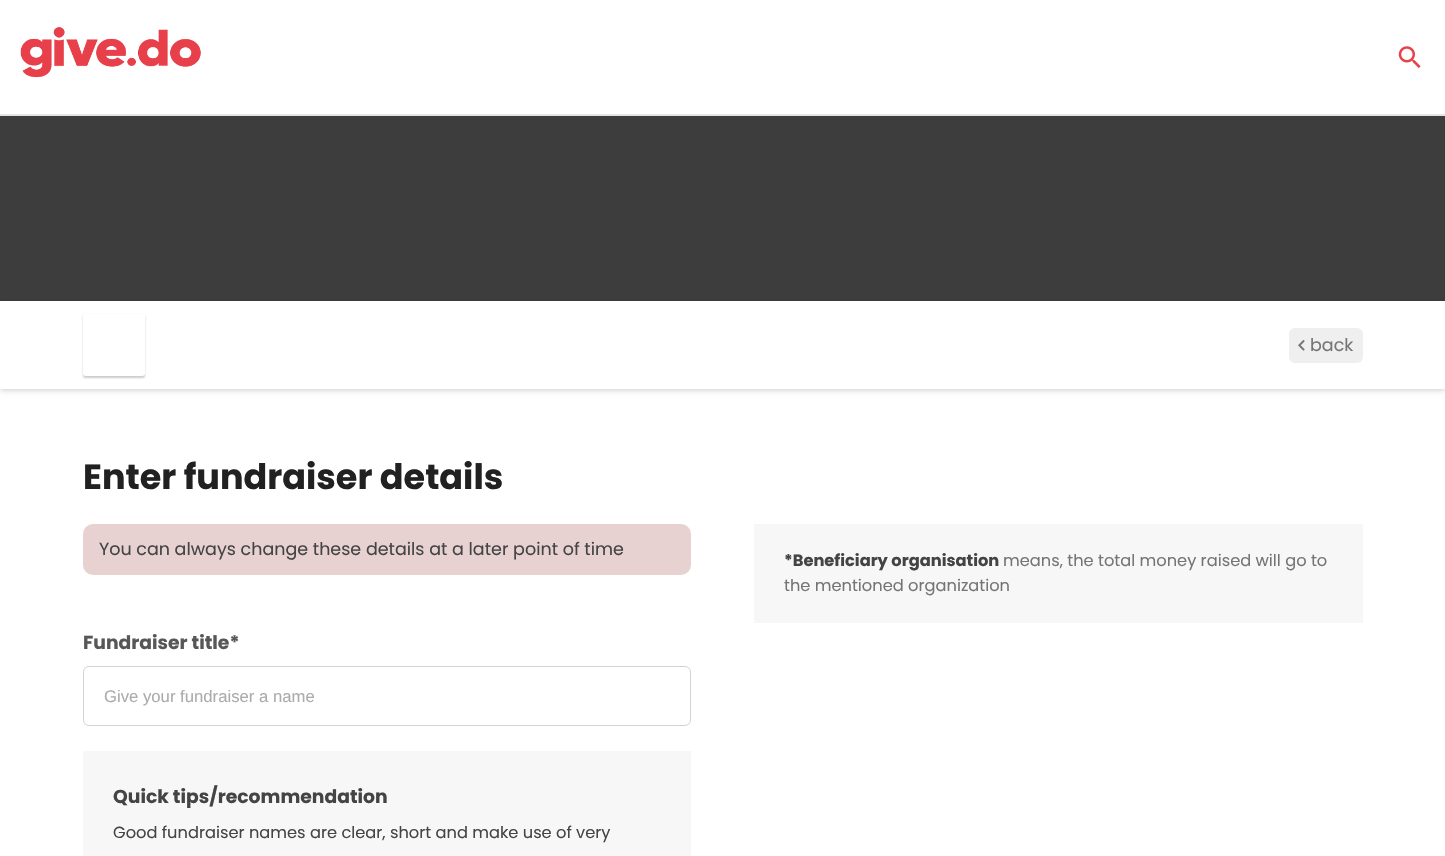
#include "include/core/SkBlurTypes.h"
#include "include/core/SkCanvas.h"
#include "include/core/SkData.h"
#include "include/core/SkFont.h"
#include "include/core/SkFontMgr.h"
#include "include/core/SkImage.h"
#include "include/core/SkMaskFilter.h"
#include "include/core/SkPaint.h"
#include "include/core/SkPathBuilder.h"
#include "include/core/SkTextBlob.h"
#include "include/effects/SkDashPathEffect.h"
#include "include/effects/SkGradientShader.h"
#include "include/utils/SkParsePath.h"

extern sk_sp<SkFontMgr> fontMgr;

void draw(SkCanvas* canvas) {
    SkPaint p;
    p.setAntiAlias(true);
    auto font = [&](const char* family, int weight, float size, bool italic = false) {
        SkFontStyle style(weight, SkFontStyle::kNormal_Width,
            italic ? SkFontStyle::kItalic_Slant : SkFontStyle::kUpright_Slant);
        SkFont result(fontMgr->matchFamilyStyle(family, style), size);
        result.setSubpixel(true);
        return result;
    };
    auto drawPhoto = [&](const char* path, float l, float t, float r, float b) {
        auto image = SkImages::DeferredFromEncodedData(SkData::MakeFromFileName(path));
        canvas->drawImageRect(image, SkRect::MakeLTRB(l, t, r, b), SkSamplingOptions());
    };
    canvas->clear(0xFFFFFFFF);
    p.setColor(0xFFE3E3E3);
    canvas->drawRect(SkRect::MakeLTRB(0, 115, 1445, 116), p);
    p.setColor(0xFFE6E6E6);
    canvas->drawRect(SkRect::MakeLTRB(0, 114, 1445, 115), p);
    drawPhoto("media/1.png", 20, 27, 201, 77);
    drawPhoto("media/2.png", 1398, 46, 1421, 68);
    canvas->save();
    canvas->clipPath(SkPathBuilder(SkPathFillType::kEvenOdd).moveTo(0, 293).lineTo(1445, 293).lineTo(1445, 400).lineTo(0, 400).close().moveTo(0, 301).lineTo(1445, 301).lineTo(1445, 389).lineTo(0, 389).close().detach(), true);
    p.setColor(0x33000000);
    p.setMaskFilter(SkMaskFilter::MakeBlur(kNormal_SkBlurStyle, 3));
    canvas->drawRect(SkRect::MakeLTRB(0, 303, 1445, 390), p);
    p.setMaskFilter(nullptr);
    canvas->restore();
    p.setColor(0xC2000000);
    canvas->drawRect(SkRect::MakeLTRB(0, 116, 1445, 301), p);
    canvas->save();
    canvas->clipPath(SkPathBuilder(SkPathFillType::kEvenOdd).moveTo(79, 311).lineTo(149, 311).lineTo(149, 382).lineTo(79, 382).close().moveTo(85.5f, 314).lineTo(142.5f, 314).cubicTo(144, 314, 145, 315, 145, 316.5f).lineTo(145, 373.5f).cubicTo(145, 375, 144, 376, 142.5f, 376).lineTo(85.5f, 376).cubicTo(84, 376, 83, 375, 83, 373.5f).lineTo(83, 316.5f).cubicTo(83, 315, 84, 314, 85.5f, 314).close().detach(), true);
    p.setColor(0x33000000);
    p.setMaskFilter(SkMaskFilter::MakeBlur(kNormal_SkBlurStyle, 1));
    canvas->drawRoundRect(SkRect::MakeLTRB(83, 315, 145, 378), 2.5f, 2.5f, p);
    p.setMaskFilter(nullptr);
    canvas->restore();
    p.setColor(0xFFEFEFEF);
    canvas->drawRoundRect(SkRect::MakeLTRB(1289, 328, 1363, 363), 6, 6, p);
    drawPhoto("media/3.png", 1298, 340, 1305, 351);
    auto font1 = font("Poppins", 400, 17.5f);
    p.setColor(0xFF757575);
    canvas->drawString("back", 1310, 351, font1, p);
    auto font2 = font("Poppins", 700, 35);
    p.setColor(0xFF212121);
    canvas->drawString("Enter fundraiser details", 83, 489, font2, p);
    p.setColor(0xFFE7D1D1);
    canvas->drawRoundRect(SkRect::MakeLTRB(83, 524, 691, 575), 10, 10, p);
    p.setColor(0xFF444444);
    canvas->drawString("You can always change these details at a later point of time", 99, 555, font1, p);
    auto font3 = font("Poppins", 700, 18.75f);
    p.setColor(0xFF575757);
    canvas->drawString("Fundraiser title*", 83, 649, font3, p);
    p.setStyle(SkPaint::kStroke_Style);
    p.setStrokeWidth(1);
    p.setColor(0xFFCED4DA);
    canvas->drawRoundRect(SkRect::MakeLTRB(83.5f, 666.5f, 690.5f, 725.5f), 5.5f, 5.5f, p);
    auto font4 = font("Liberation Sans", 400, 16.7f);
    p.setStyle(SkPaint::kFill_Style);
    p.setColor(0xFFABABAB);
    canvas->drawString("Give your fundraiser a name", 104, 702, font4, p);
    p.setColor(0xFFF7F7F7);
    canvas->drawRect(SkRect::MakeLTRB(83, 751, 691, 856), p);
    p.setColor(0xFF444444);
    canvas->drawString("Quick tips/recommendation", 113, 803, font3, p);
    auto font5 = font("Poppins", 400, 16.25f);
    canvas->drawString("Good fundraiser names are clear, short and make use of very", 113, 838, font5, p);
    p.setColor(0xFFF7F7F7);
    canvas->drawRect(SkRect::MakeLTRB(754, 524, 1363, 623), p);
    auto font6 = font("Poppins", 700, 16.25f);
    p.setColor(0xFF444444);
    canvas->drawString("*Beneficiary organisation", 784, 566, font6, p);
    p.setColor(0xFF757575);
    canvas->drawString("means, the total money raised will go to", 1003, 566, font5, p);
    canvas->drawString("the mentioned organization", 784, 591, font5, p);
}
